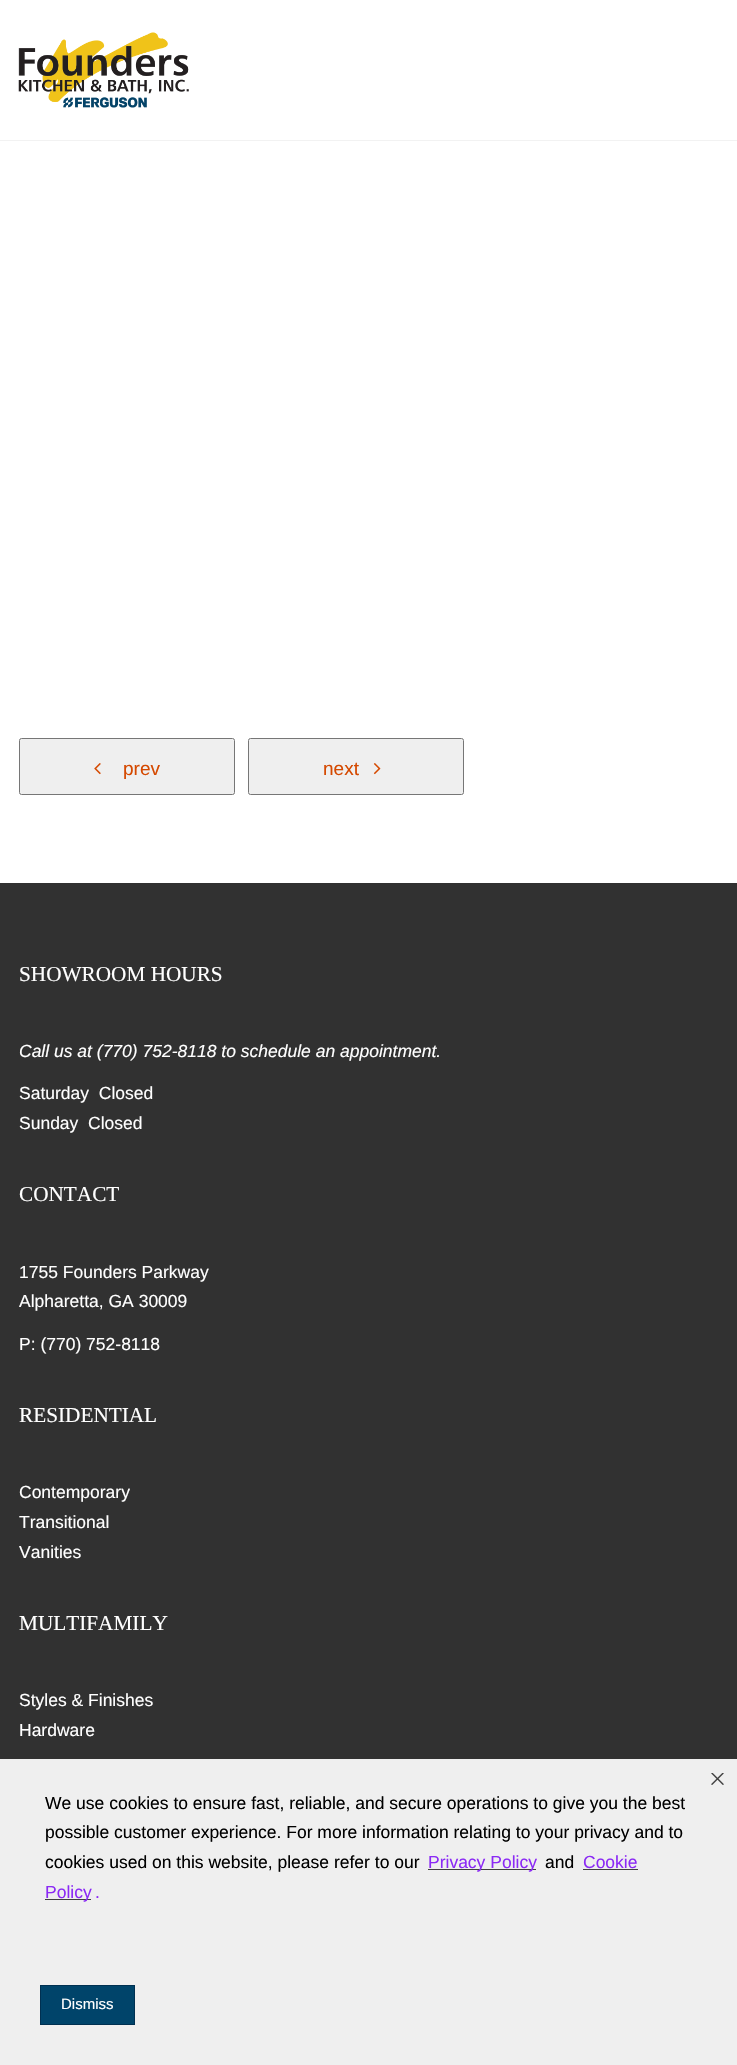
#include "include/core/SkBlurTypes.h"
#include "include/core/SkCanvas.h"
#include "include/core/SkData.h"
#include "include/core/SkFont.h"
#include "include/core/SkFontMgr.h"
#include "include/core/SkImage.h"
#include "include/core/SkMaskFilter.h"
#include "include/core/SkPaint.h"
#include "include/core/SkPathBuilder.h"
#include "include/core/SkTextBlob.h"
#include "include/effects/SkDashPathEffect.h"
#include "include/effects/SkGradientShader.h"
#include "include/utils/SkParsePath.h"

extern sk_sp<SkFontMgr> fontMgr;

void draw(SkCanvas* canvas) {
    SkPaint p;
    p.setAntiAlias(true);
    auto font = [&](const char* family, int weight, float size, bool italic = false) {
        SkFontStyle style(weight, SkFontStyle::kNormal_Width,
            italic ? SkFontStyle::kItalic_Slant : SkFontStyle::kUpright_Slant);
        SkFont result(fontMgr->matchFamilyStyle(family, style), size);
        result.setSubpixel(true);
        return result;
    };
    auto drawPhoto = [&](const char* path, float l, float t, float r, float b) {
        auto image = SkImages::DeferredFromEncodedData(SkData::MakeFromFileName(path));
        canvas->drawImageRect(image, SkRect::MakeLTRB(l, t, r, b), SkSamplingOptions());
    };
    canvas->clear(0xFFFFFFFF);
    p.setColor(0xFFF2F2F2);
    canvas->drawRect(SkRect::MakeLTRB(0, 140, 737, 141), p);
    drawPhoto("media/1.png", 18, 32, 189, 108);
    p.setColor(0xFFEFEFEF);
    canvas->drawRoundRect(SkRect::MakeLTRB(19.5f, 738.5f, 234.5f, 794.5f), 2, 2, p);
    p.setStyle(SkPaint::kStroke_Style);
    p.setStrokeWidth(1);
    p.setColor(0xFF767676);
    canvas->drawRoundRect(SkRect::MakeLTRB(19.5f, 738.5f, 234.5f, 794.5f), 2, 2, p);
    drawPhoto("media/2.png", 94, 763, 101, 775);
    auto font1 = font("Liberation Sans", 400, 19);
    p.setStyle(SkPaint::kFill_Style);
    p.setColor(0xFFD54900);
    canvas->drawString("prev", 123, 775, font1, p);
    p.setColor(0xFFEFEFEF);
    canvas->drawRoundRect(SkRect::MakeLTRB(248.5f, 738.5f, 463.5f, 794.5f), 2, 2, p);
    p.setStyle(SkPaint::kStroke_Style);
    p.setColor(0xFF767676);
    canvas->drawRoundRect(SkRect::MakeLTRB(248.5f, 738.5f, 463.5f, 794.5f), 2, 2, p);
    p.setStyle(SkPaint::kFill_Style);
    p.setColor(0xFFD54900);
    canvas->drawString("next", 323, 775, font1, p);
    drawPhoto("media/3.png", 373, 763, 381, 775);
    p.setColor(0xFF313131);
    canvas->drawRect(SkRect::MakeLTRB(0, 883, 737, 1759), p);
    auto font2 = font("Liberation Serif", 400, 21.25f);
    p.setColor(0xFFFFFFFF);
    canvas->drawString("SHOWROOM HOURS", 19, 981, font2, p);
    auto font3 = font("Liberation Sans", 400, 17.5f, true);
    canvas->drawString("Call us at (770) 752-8118 to schedule an appointment.", 19, 1057, font3, p);
    auto font4 = font("Liberation Sans", 400, 17.5f);
    canvas->drawString("Saturday  Closed", 19, 1099, font4, p);
    canvas->drawString("Sunday  Closed", 19, 1129, font4, p);
    canvas->drawString("CONTACT", 19, 1201, font2, p);
    {
        const struct { const char* s; float x, y; } items[] = {
            {"1755 Founders Parkway", 19, 1278},
            {"Alpharetta, GA 30009", 19, 1307},
            {"P: (770) 752-8118", 19, 1350},
        };
        for (auto [s, x, y] : items) {
            canvas->drawString(s, x, y, font4, p);
        }
    }
    canvas->drawString("RESIDENTIAL", 19, 1422, font2, p);
    {
        const struct { const char* s; float x, y; } items[] = {
            {"Contemporary", 19, 1498},
            {"Transitional", 19, 1528},
            {"Vanities", 19, 1558},
        };
        for (auto [s, x, y] : items) {
            canvas->drawString(s, x, y, font4, p);
        }
    }
    canvas->drawString("MULTIFAMILY", 19, 1630, font2, p);
    canvas->drawString("Styles & Finishes", 19, 1706, font4, p);
    canvas->drawString("Hardware", 19, 1736, font4, p);
    p.setColor(0xFFEFEFEF);
    canvas->drawRect(SkRect::MakeLTRB(0, 1759, 737, 2065), p);
    p.setColor(0xFF000000);
    {
        const struct { const char* s; float x, y; } items[] = {
            {"We use cookies to ensure fast, reliable, and secure operations to give you the best", 45, 1809},
            {"possible customer experience. For more information relating to your privacy and to", 45, 1838},
            {"cookies used on this website, please refer to our", 45, 1868},
        };
        for (auto [s, x, y] : items) {
            canvas->drawString(s, x, y, font4, p);
        }
    }
    p.setColor(0xFF404040);
    canvas->drawRect(SkRect::MakeLTRB(428, 1869, 536, 1870), p);
    p.setColor(0xFF8B2AF5);
    canvas->drawString("Privacy Policy", 428, 1868, font4, p);
    p.setColor(0xFF000000);
    canvas->drawString("and", 545, 1868, font4, p);
    p.setColor(0xFF8B2AF5);
    canvas->drawString("Cookie", 583, 1868, font4, p);
    p.setColor(0xFF404040);
    canvas->drawRect(SkRect::MakeLTRB(583, 1869, 638, 1870), p);
    canvas->drawRect(SkRect::MakeLTRB(45, 1899, 91, 1900), p);
    p.setColor(0xFF8B2AF5);
    canvas->drawString("Policy", 45, 1898, font4, p);
    canvas->drawString(".", 95, 1898, font4, p);
    drawPhoto("media/4.png", 711, 1773, 724, 1785);
    p.setColor(0xFF00446A);
    canvas->drawRect(SkRect::MakeLTRB(40.5f, 1985.5f, 134.5f, 2024.5f), p);
    p.setStyle(SkPaint::kStroke_Style);
    p.setColor(0xFF003051);
    canvas->drawRect(SkRect::MakeLTRB(40.5f, 1985.5f, 134.5f, 2024.5f), p);
    auto font5 = font("Liberation Sans", 400, 15);
    p.setStyle(SkPaint::kFill_Style);
    p.setColor(0xFFFFFFFF);
    canvas->drawString("Dismiss", 61, 2009, font5, p);
}
